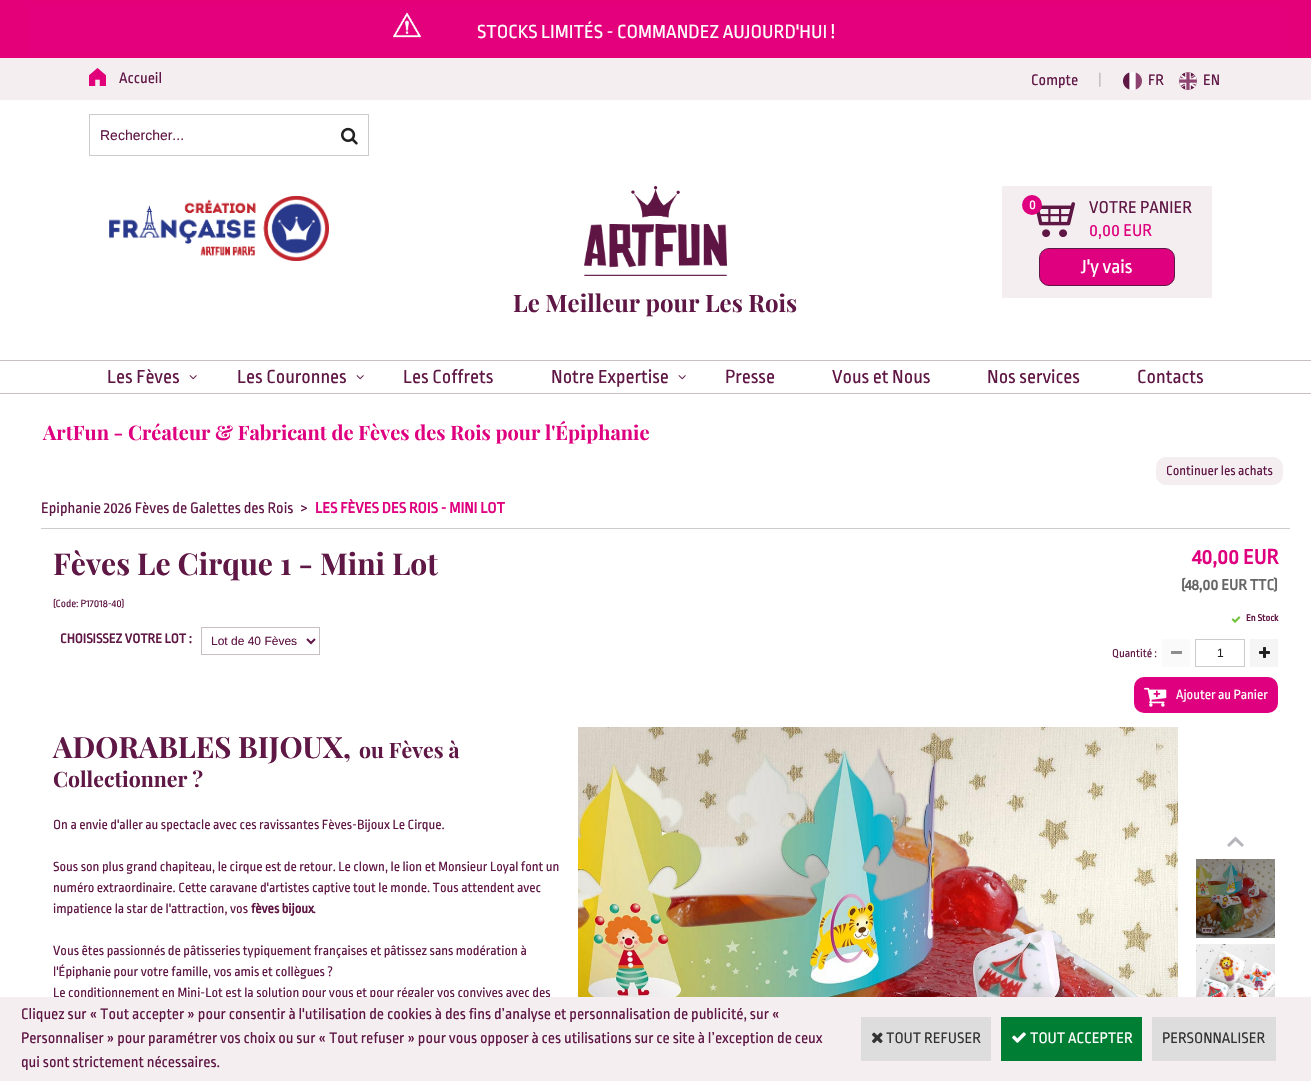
#include "include/core/SkBlurTypes.h"
#include "include/core/SkCanvas.h"
#include "include/core/SkData.h"
#include "include/core/SkFont.h"
#include "include/core/SkFontMgr.h"
#include "include/core/SkImage.h"
#include "include/core/SkMaskFilter.h"
#include "include/core/SkPaint.h"
#include "include/core/SkPathBuilder.h"
#include "include/core/SkTextBlob.h"
#include "include/effects/SkDashPathEffect.h"
#include "include/effects/SkGradientShader.h"
#include "include/utils/SkParsePath.h"

extern sk_sp<SkFontMgr> fontMgr;

void draw(SkCanvas* canvas) {
    SkPaint p;
    p.setAntiAlias(true);
    auto font = [&](const char* family, int weight, float size, bool italic = false) {
        SkFontStyle style(weight, SkFontStyle::kNormal_Width,
            italic ? SkFontStyle::kItalic_Slant : SkFontStyle::kUpright_Slant);
        SkFont result(fontMgr->matchFamilyStyle(family, style), size);
        result.setSubpixel(true);
        return result;
    };
    auto drawPhoto = [&](const char* path, float l, float t, float r, float b) {
        auto image = SkImages::DeferredFromEncodedData(SkData::MakeFromFileName(path));
        canvas->drawImageRect(image, SkRect::MakeLTRB(l, t, r, b), SkSamplingOptions());
    };
    canvas->clear(0xFFFFFFFF);
    p.setColor(0xFFE30079);
    canvas->drawRect(SkRect::MakeLTRB(0, 0, 1311, 58), p);
    p.setColor(0xFFE4007D);
    canvas->drawRect(SkRect::MakeLTRB(30, 5, 1281, 53), p);
    drawPhoto("media/1.png", 393, 12, 422, 38);
    auto font1 = font("Ropa Sans", 400, 20);
    p.setColor(0xFFFFFFFF);
    canvas->drawString("STOCKS LIMITÉS - COMMANDEZ AUJOURD'HUI !", 477, 38, font1, p);
    p.setColor(0xFFF4EEF0);
    canvas->drawRect(SkRect::MakeLTRB(0, 58, 1311, 100), p);
    drawPhoto("media/2.png", 89, 68, 106, 86);
    auto font2 = font("Ropa Sans", 400, 16);
    p.setColor(0xFF5F1745);
    canvas->drawString("Accueil", 119, 83, font2, p);
    canvas->drawString("Compte", 1031, 85, font2, p);
    p.setColor(0xFFC4BEC0);
    canvas->drawString("|", 1098, 85, font2, p);
    drawPhoto("media/3.png", 1123, 72, 1142, 90);
    p.setColor(0xFF5F1745);
    canvas->drawString("FR", 1148, 85, font2, p);
    drawPhoto("media/4.png", 1179, 72, 1197, 90);
    canvas->drawString("EN", 1203, 85, font2, p);
    p.setStyle(SkPaint::kStroke_Style);
    p.setStrokeWidth(1);
    p.setColor(0xFFCCCCCC);
    canvas->drawRect(SkRect::MakeLTRB(89.5f, 114.5f, 368.5f, 155.5f), p);
    auto font3 = font("Liberation Sans", 400, 14);
    p.setStyle(SkPaint::kFill_Style);
    p.setColor(0xFF5F1745);
    canvas->drawString("Rechercher...", 100, 140, font3, p);
    drawPhoto("media/5.png", 341, 127, 358, 145);
    drawPhoto("media/6.png", 109, 196, 329, 261);
    p.setColor(0xFFF4EEF0);
    canvas->drawRect(SkRect::MakeLTRB(1002, 186, 1212, 298), p);
    drawPhoto("media/7.png", 1036, 202, 1075, 237);
    p.setColor(0xFFDE007E);
    canvas->drawCircle(1032, 205, 10, p);
    auto font4 = font("Ropa Sans", 400, 14);
    p.setColor(0xFFFFFFFF);
    canvas->drawString("0", 1029, 209, font4, p);
    auto font5 = font("Ropa Sans", 400, 18);
    p.setColor(0xFF5F1745);
    canvas->drawString("VOTRE PANIER", 1089, 213, font5, p);
    p.setColor(0xFFDE007E);
    canvas->drawString("0,00 EUR", 1089, 236, font5, p);
    canvas->drawRoundRect(SkRect::MakeLTRB(1039.5f, 248.5f, 1174.5f, 285.5f), 9.5f, 9.5f, p);
    p.setStyle(SkPaint::kStroke_Style);
    p.setColor(0xFF5F1745);
    canvas->drawRoundRect(SkRect::MakeLTRB(1039.5f, 248.5f, 1174.5f, 285.5f), 9.5f, 9.5f, p);
    p.setStyle(SkPaint::kFill_Style);
    p.setColor(0xFFFFFFFF);
    canvas->drawString("J'y vais", 1081, 273, font1, p);
    drawPhoto("media/8.png", 584, 186, 727, 276);
    auto font6 = font("Playfair Display", 700, 24);
    p.setColor(0xFF5F1745);
    canvas->drawString("Le Meilleur pour Les Rois", 513, 312, font6, p);
    p.setColor(0xFFC8BFC2);
    canvas->drawRect(SkRect::MakeLTRB(0, 360, 1311, 361), p);
    canvas->drawRect(SkRect::MakeLTRB(0, 393, 1311, 394), p);
    p.setColor(0xFF5F1745);
    canvas->drawString("Les Fèves", 107, 383, font1, p);
    drawPhoto("media/9.png", 189, 375, 197, 380);
    canvas->drawString("Les Couronnes", 237, 383, font1, p);
    drawPhoto("media/9.png", 356, 375, 364, 380);
    canvas->drawString("Les Coffrets", 403, 383, font1, p);
    canvas->drawString("Notre Expertise", 551, 383, font1, p);
    drawPhoto("media/9.png", 678, 375, 686, 380);
    {
        const struct { const char* s; float x, y; } items[] = {
            {"Presse", 725, 383},
            {"Vous et Nous", 832, 383},
            {"Nos services", 987, 383},
            {"Contacts", 1137, 383},
        };
        for (auto [s, x, y] : items) {
            canvas->drawString(s, x, y, font1, p);
        }
    }
    auto font7 = font("Playfair Display", 700, 20);
    p.setColor(0xFFDE007E);
    canvas->drawString("ArtFun - Créateur & Fabricant de Fèves des Rois pour l'Épiphanie", 43, 440, font7, p);
    p.setColor(0xFFF4EEF0);
    canvas->drawRoundRect(SkRect::MakeLTRB(1156, 457, 1283, 485), 10, 10, p);
    p.setColor(0xFF5F1745);
    canvas->drawString("Continuer les achats", 1166, 475, font4, p);
    canvas->drawString("Epiphanie 2026 Fèves de Galettes des Rois", 41, 513, font2, p);
    canvas->drawString(">", 301, 513, font2, p);
    auto font8 = font("Ropa Sans", 700, 16);
    p.setColor(0xFFDE007E);
    canvas->drawString("LES FÈVES DES ROIS - MINI LOT", 315, 513, font8, p);
    p.setColor(0xFFCCCCCC);
    canvas->drawRect(SkRect::MakeLTRB(41, 528, 1290, 529), p);
    auto font9 = font("Playfair Display", 700, 30);
    p.setColor(0xFF5F1745);
    canvas->drawString("Fèves Le Cirque 1 - Mini Lot", 53, 575, font9, p);
    auto font10 = font("Ropa Sans", 400, 11);
    canvas->drawString("(Code: P17018-40)", 53, 607, font10, p);
    auto font11 = font("Ropa Sans", 700, 14);
    canvas->drawString("CHOISISSEZ VOTRE LOT :", 60, 643, font11, p);
    p.setStyle(SkPaint::kStroke_Style);
    p.setColor(0xFFC8BFC2);
    canvas->drawRect(SkRect::MakeLTRB(201.5f, 627.5f, 319.5f, 654.5f), p);
    p.setStrokeWidth(2);
    p.setColor(0xFF5F1745);
    canvas->drawPath(SkPathBuilder().moveTo(307, 639).lineTo(311, 643).lineTo(315, 639).detach(), p);
    auto font12 = font("Liberation Sans", 400, 12);
    p.setStyle(SkPaint::kFill_Style);
    canvas->drawString("Lot de 40 Fèves", 211, 645, font12, p);
    auto font13 = font("Ropa Sans", 700, 22);
    p.setColor(0xFFDE007E);
    canvas->drawString("40,00 EUR", 1192, 564, font13, p);
    p.setColor(0xFF666666);
    canvas->drawString("(48,00 EUR TTC)", 1181, 590, font8, p);
    drawPhoto("media/10.png", 1231, 616, 1241, 623);
    auto font14 = font("Ropa Sans", 700, 10);
    p.setColor(0xFF5F1745);
    canvas->drawString("En Stock", 1246, 621, font14, p);
    auto font15 = font("Ropa Sans", 400, 12);
    canvas->drawString("Quantité :", 1112, 657, font15, p);
    p.setColor(0xFFFAFAFA);
    canvas->drawRect(SkRect::MakeLTRB(1162, 639, 1190, 667), p);
    p.setColor(0xFF8E8E8E);
    canvas->drawRect(SkRect::MakeLTRB(1171, 651, 1182, 654), p);
    p.setStyle(SkPaint::kStroke_Style);
    p.setStrokeWidth(1);
    p.setColor(0xFFCCCCCC);
    canvas->drawRect(SkRect::MakeLTRB(1195.5f, 639.5f, 1244.5f, 666.5f), p);
    p.setStyle(SkPaint::kFill_Style);
    p.setColor(0xFF212121);
    canvas->drawString("1", 1217, 657, font12, p);
    p.setColor(0xFFF5F5F5);
    canvas->drawRect(SkRect::MakeLTRB(1250, 639, 1278, 667), p);
    drawPhoto("media/11.png", 1259, 647, 1270, 658);
    p.setColor(0xFFDE007E);
    canvas->drawRoundRect(SkRect::MakeLTRB(1134, 677, 1278, 713), 10, 10, p);
    drawPhoto("media/12.png", 1144, 687, 1167, 707);
    p.setColor(0xFFFFFFFF);
    canvas->drawString("Ajouter au Panier", 1176, 699, font4, p);
    auto font16 = font("Playfair Display", 700, 29.25f);
    p.setColor(0xFF5F1745);
    canvas->drawString("ADORABLES BIJOUX,", 53, 758, font16, p);
    auto font17 = font("Playfair Display", 700, 21.25f);
    canvas->drawString("ou Fèves à", 359, 758, font17, p);
    canvas->drawString("Collectionner ?", 53, 787, font17, p);
    {
        const struct { const char* s; float x, y; } items[] = {
            {"On a envie d'aller au spectacle avec ces ravissantes Fèves-Bijoux Le Cirque.", 53, 829},
            {"Sous son plus grand chapiteau, le cirque est de retour. Le clown, le lion et Monsieur Loyal font un", 53, 871},
            {"numéro extraordinaire. Cette caravane d'artistes captive tout le monde. Tous attendent avec", 53, 892},
            {"impatience la star de l'attraction, vos", 53, 913},
        };
        for (auto [s, x, y] : items) {
            canvas->drawString(s, x, y, font4, p);
        }
    }
    canvas->drawString("fèves bijoux", 251, 913, font11, p);
    {
        const struct { const char* s; float x, y; } items[] = {
            {".", 313, 913},
            {"Vous êtes passionnés de pâtisseries typiquement françaises et pâtissez sans modération à", 53, 955},
            {"l'Épiphanie pour votre famille, vos amis et collègues ?", 53, 976},
            {"Le conditionnement en Mini-Lot est la solution pour vous et pour régaler vos convives avec des", 53, 997},
        };
        for (auto [s, x, y] : items) {
            canvas->drawString(s, x, y, font4, p);
        }
    }
    drawPhoto("media/13.png", 578, 727, 1178, 997);
    p.setColor(0xFFB5B6B9);
    canvas->drawPath(SkPathBuilder().moveTo(1235.5f, 836.5f).lineTo(1244, 845).lineTo(1242, 847).lineTo(1235.5f, 841).close().detach(), p);
    p.setColor(0x9983858B);
    canvas->drawPath(SkPathBuilder().moveTo(1227, 845).lineTo(1235.5f, 836.5f).lineTo(1235.5f, 841).lineTo(1229, 847).close().detach(), p);
    drawPhoto("media/14.png", 1196, 859, 1275, 938);
    drawPhoto("media/15.png", 1196, 944, 1275, 997);
    p.setColor(0xFFF4EEF0);
    canvas->drawRect(SkRect::MakeLTRB(0, 997, 1311, 1081), p);
    p.setColor(0xFF5F1745);
    {
        const struct { const char* s; float x, y; } items[] = {
            {"Cliquez sur « Tout accepter » pour consentir à l'utilisation de cookies à des fins d’analyse et personnalisation de publicité, sur «", 21, 1019},
            {"Personnaliser » pour paramétrer vos choix ou sur « Tout refuser » pour vous opposer à ces utilisations sur ce site à l’exception de ceux", 21, 1043},
            {"qui sont strictement nécessaires.", 21, 1067},
        };
        for (auto [s, x, y] : items) {
            canvas->drawString(s, x, y, font2, p);
        }
    }
    p.setColor(0xFFDDDDDD);
    canvas->drawRect(SkRect::MakeLTRB(861, 1017, 991, 1061), p);
    drawPhoto("media/16.png", 872, 1032, 883, 1044);
    p.setColor(0xFF333333);
    canvas->drawString("TOUT REFUSER", 886, 1043, font2, p);
    p.setColor(0xFF007E33);
    canvas->drawRect(SkRect::MakeLTRB(1001, 1017, 1142, 1061), p);
    drawPhoto("media/17.png", 1012, 1032, 1026, 1043);
    p.setColor(0xFFFFFFFF);
    canvas->drawString("TOUT ACCEPTER", 1030, 1043, font2, p);
    p.setColor(0xFFDDDDDD);
    canvas->drawRect(SkRect::MakeLTRB(1152, 1017, 1276, 1061), p);
    p.setColor(0xFF333333);
    canvas->drawString("PERSONNALISER", 1162, 1043, font2, p);
}
